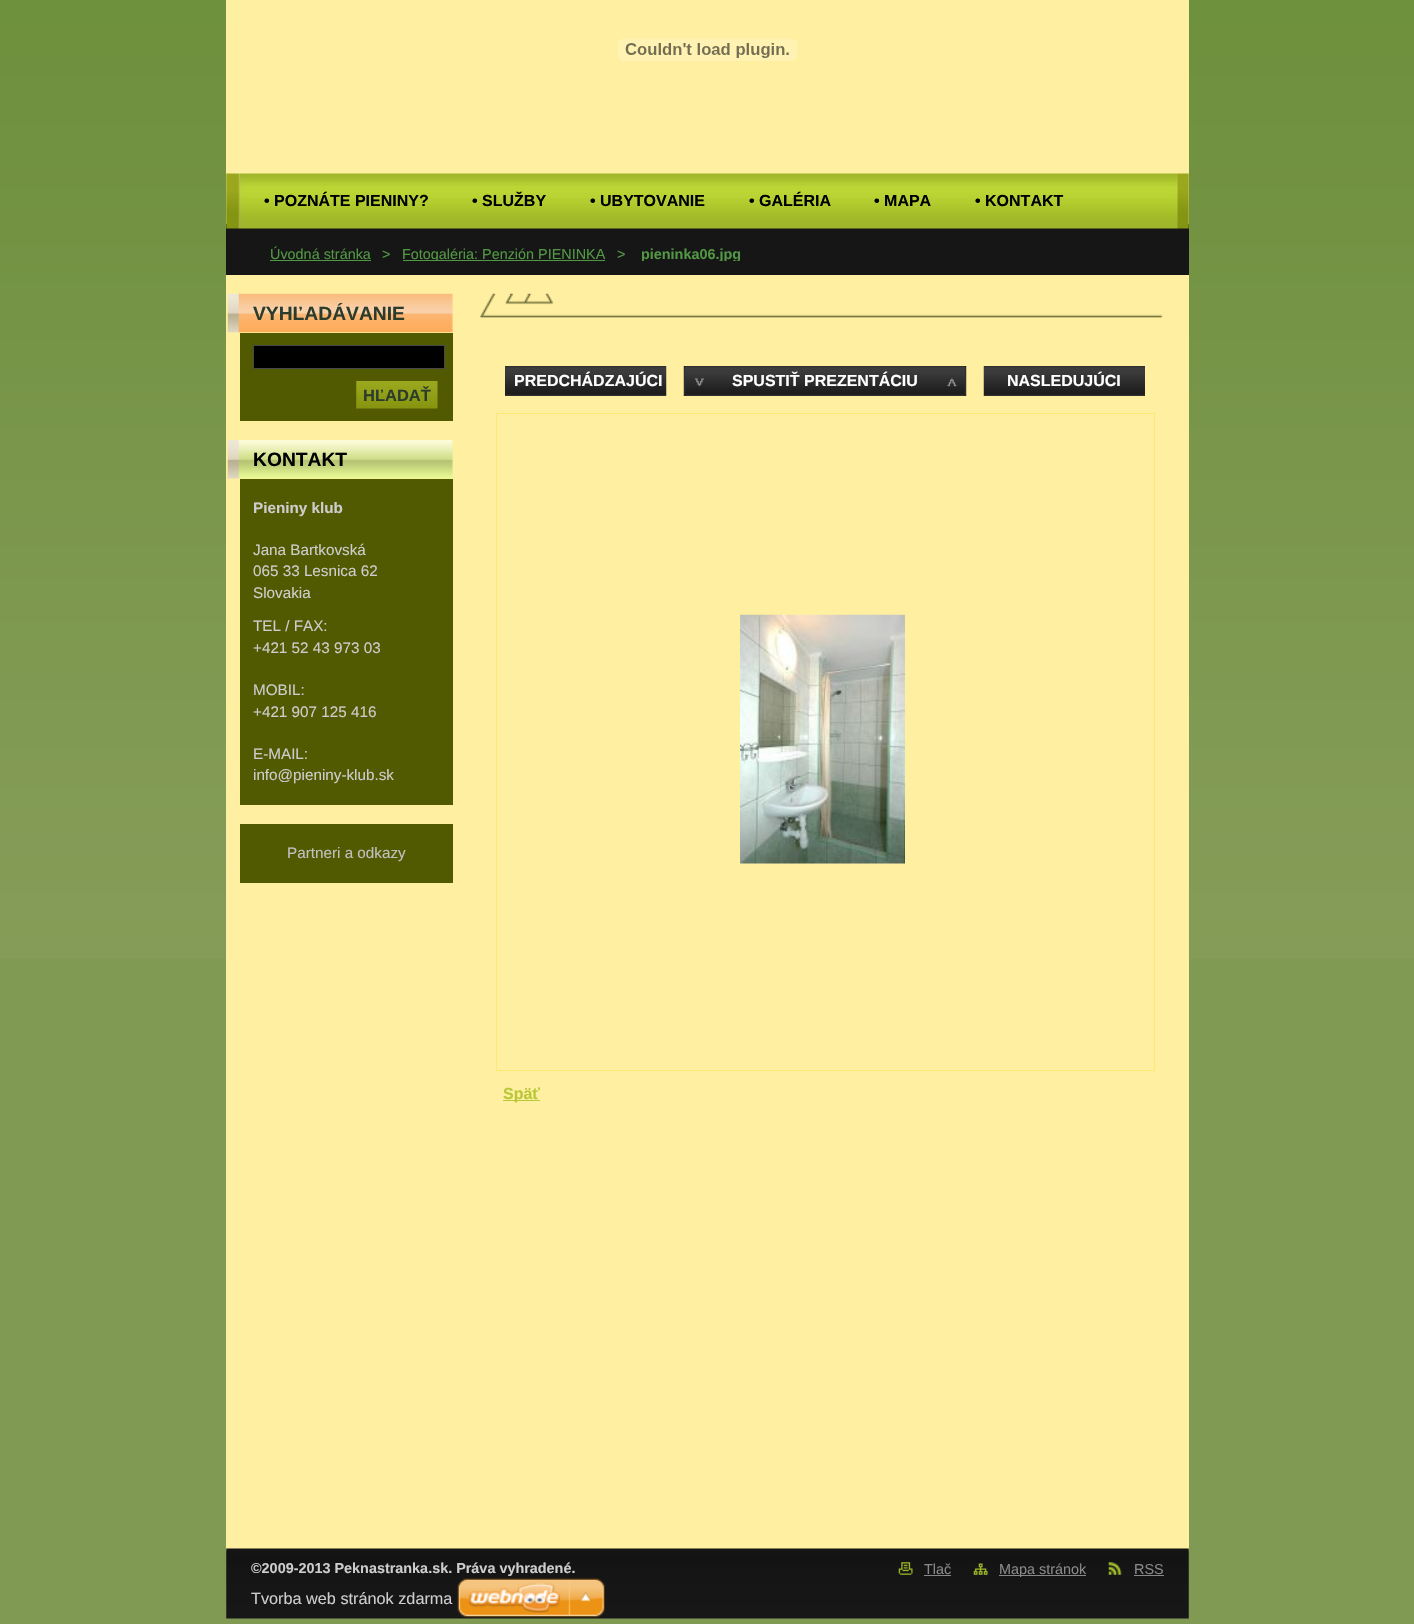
#include "include/core/SkBlurTypes.h"
#include "include/core/SkCanvas.h"
#include "include/core/SkData.h"
#include "include/core/SkFont.h"
#include "include/core/SkFontMgr.h"
#include "include/core/SkImage.h"
#include "include/core/SkMaskFilter.h"
#include "include/core/SkPaint.h"
#include "include/core/SkPathBuilder.h"
#include "include/core/SkTextBlob.h"
#include "include/effects/SkDashPathEffect.h"
#include "include/effects/SkGradientShader.h"
#include "include/utils/SkParsePath.h"

extern sk_sp<SkFontMgr> fontMgr;

void draw(SkCanvas* canvas) {
    SkPaint p;
    p.setAntiAlias(true);
    auto font = [&](const char* family, int weight, float size, bool italic = false) {
        SkFontStyle style(weight, SkFontStyle::kNormal_Width,
            italic ? SkFontStyle::kItalic_Slant : SkFontStyle::kUpright_Slant);
        SkFont result(fontMgr->matchFamilyStyle(family, style), size);
        result.setSubpixel(true);
        return result;
    };
    auto drawPhoto = [&](const char* path, float l, float t, float r, float b) {
        auto image = SkImages::DeferredFromEncodedData(SkData::MakeFromFileName(path));
        canvas->drawImageRect(image, SkRect::MakeLTRB(l, t, r, b), SkSamplingOptions());
    };
    canvas->clear(0xFF809A53);
    drawPhoto("media/1.png", 0, 0, 1414, 959);
    p.setColor(0xFFFFEFA0);
    canvas->drawRect(SkRect::MakeLTRB(226, 0, 1189, 1551), p);
    drawPhoto("media/2.png", 617, 38, 798, 61);
    p.setColor(0xFF161616);
    canvas->drawRect(SkRect::MakeLTRB(226, 224, 1189, 275), p);
    drawPhoto("media/3.png", 226, 173, 1189, 229);
    auto font1 = font("Liberation Sans", 700, 16);
    p.setColor(0xFF000000);
    {
        const struct { const char* s; float x, y; } items[] = {
            {"• POZNÁTE PIENINY?", 264, 206},
            {"• SLUŽBY", 472, 206},
            {"• UBYTOVANIE", 590, 206},
            {"• GALÉRIA", 749, 206},
            {"• MAPA", 874, 206},
            {"• KONTAKT", 975, 206},
        };
        for (auto [s, x, y] : items) {
            canvas->drawString(s, x, y, font1, p);
        }
    }
    auto font2 = font("Liberation Sans", 400, 14.4f);
    p.setColor(0xFF529744);
    canvas->drawString("Úvodná stránka", 270, 259, font2, p);
    canvas->drawRect(SkRect::MakeLTRB(270, 260, 371, 261), p);
    canvas->drawString(">", 382, 259, font2, p);
    canvas->drawRect(SkRect::MakeLTRB(403, 260, 605, 261), p);
    canvas->save();
    canvas->clipRect(SkRect::MakeLTRB(270, 246, 833, 261));
    canvas->drawString("Fotogaléria: Penzión PIENINKA", 402, 259, font2, p);
    canvas->restore();
    canvas->drawString(">", 617, 259, font2, p);
    canvas->save();
    canvas->clipRect(SkRect::MakeLTRB(270, 246, 833, 261));
    auto font3 = font("Liberation Sans", 700, 14.4f);
    canvas->drawString("pieninka06.jpg", 641, 259, font3, p);
    canvas->restore();
    drawPhoto("media/4.png", 227, 293, 453, 333);
    auto font4 = font("Liberation Sans", 700, 19.25f);
    p.setColor(0xFF2B3B2C);
    canvas->drawString("VYHĽADÁVANIE", 253, 320, font4, p);
    p.setColor(0xFF515A00);
    canvas->drawRect(SkRect::MakeLTRB(240, 333, 453, 421), p);
    p.setColor(0xFF000000);
    canvas->drawRect(SkRect::MakeLTRB(253.5f, 345.5f, 444.5f, 368.5f), p);
    p.setStyle(SkPaint::kStroke_Style);
    p.setStrokeWidth(1);
    p.setColor(0xFF484848);
    canvas->drawRect(SkRect::MakeLTRB(253.5f, 345.5f, 444.5f, 368.5f), p);
    drawPhoto("media/5.png", 356, 381, 438, 409);
    auto font5 = font("Liberation Sans", 700, 16.5f);
    p.setStyle(SkPaint::kFill_Style);
    p.setColor(0xFF2B3B2C);
    canvas->drawString("HĽADAŤ", 363, 401, font5, p);
    drawPhoto("media/6.png", 227, 440, 453, 479);
    p.setColor(0xFF000000);
    canvas->drawString("KONTAKT", 253, 466, font4, p);
    p.setColor(0xFF515A00);
    canvas->drawRect(SkRect::MakeLTRB(240, 479, 453, 805), p);
    auto font6 = font("Liberation Sans", 700, 15.25f);
    p.setColor(0xFFCDCDCD);
    canvas->drawString("Pieniny klub", 253, 513, font6, p);
    auto font7 = font("Liberation Sans", 400, 15.25f);
    {
        const struct { const char* s; float x, y; } items[] = {
            {"Jana Bartkovská", 253, 555},
            {"065 33 Lesnica 62", 253, 576},
            {"Slovakia", 253, 598},
            {"TEL / FAX:", 253, 631},
            {"+421 52 43 973 03", 253, 653},
            {"MOBIL:", 253, 695},
            {"+421 907 125 416", 253, 717},
            {"E-MAIL:", 253, 759},
            {"info@pieniny-klub.sk", 253, 780},
        };
        for (auto [s, x, y] : items) {
            canvas->drawString(s, x, y, font7, p);
        }
    }
    p.setColor(0xFF515A00);
    canvas->drawRect(SkRect::MakeLTRB(240, 824, 453, 883), p);
    p.setColor(0xFFC0C0C0);
    canvas->drawString("Partneri a odkazy", 287, 858, font7, p);
    drawPhoto("media/7.png", 479, 293, 1163, 318);
    drawPhoto("media/8.png", 505, 366, 667, 396);
    p.setColor(0xFFFFFFFF);
    canvas->drawString("PREDCHÁDZAJÚCI", 514, 386, font1, p);
    drawPhoto("media/9.png", 683, 366, 967, 396);
    canvas->drawString("SPUSTIŤ PREZENTÁCIU", 732, 386, font1, p);
    drawPhoto("media/10.png", 983, 366, 1145, 396);
    canvas->drawString("NASLEDUJÚCI", 1007, 386, font1, p);
    p.setStyle(SkPaint::kStroke_Style);
    p.setColor(0xFFFFE773);
    canvas->drawRect(SkRect::MakeLTRB(496.5f, 413.5f, 1154.5f, 1070.5f), p);
    drawPhoto("media/11.png", 740, 614, 905, 864);
    p.setStyle(SkPaint::kFill_Style);
    p.setColor(0xFFB9C83A);
    canvas->drawRect(SkRect::MakeLTRB(503, 1100, 540, 1101), p);
    canvas->drawString("Späť", 503, 1099, font1, p);
    drawPhoto("media/12.png", 226, 1548, 1189, 1619);
    p.setColor(0xFFCDCDCD);
    canvas->drawString("©2009-2013 Peknastranka.sk. Práva vyhradené.", 251, 1573, font3, p);
    drawPhoto("media/13.png", 898, 1562, 913, 1575);
    p.setColor(0xFF888888);
    canvas->drawString("Tlač", 924, 1574, font2, p);
    canvas->drawRect(SkRect::MakeLTRB(924, 1575, 951, 1576), p);
    drawPhoto("media/14.png", 973, 1563, 988, 1575);
    canvas->drawRect(SkRect::MakeLTRB(999, 1575, 1086, 1576), p);
    canvas->drawString("Mapa stránok", 999, 1574, font2, p);
    drawPhoto("media/15.png", 1108, 1562, 1122, 1575);
    canvas->drawString("RSS", 1134, 1574, font2, p);
    canvas->drawRect(SkRect::MakeLTRB(1134, 1575, 1164, 1576), p);
    auto font8 = font("Liberation Sans", 400, 16.25f);
    p.setColor(0xFFCDCDCD);
    canvas->drawString("Tvorba web stránok zdarma", 251, 1604, font8, p);
    drawPhoto("media/16.png", 457, 1578, 605, 1618);
}
